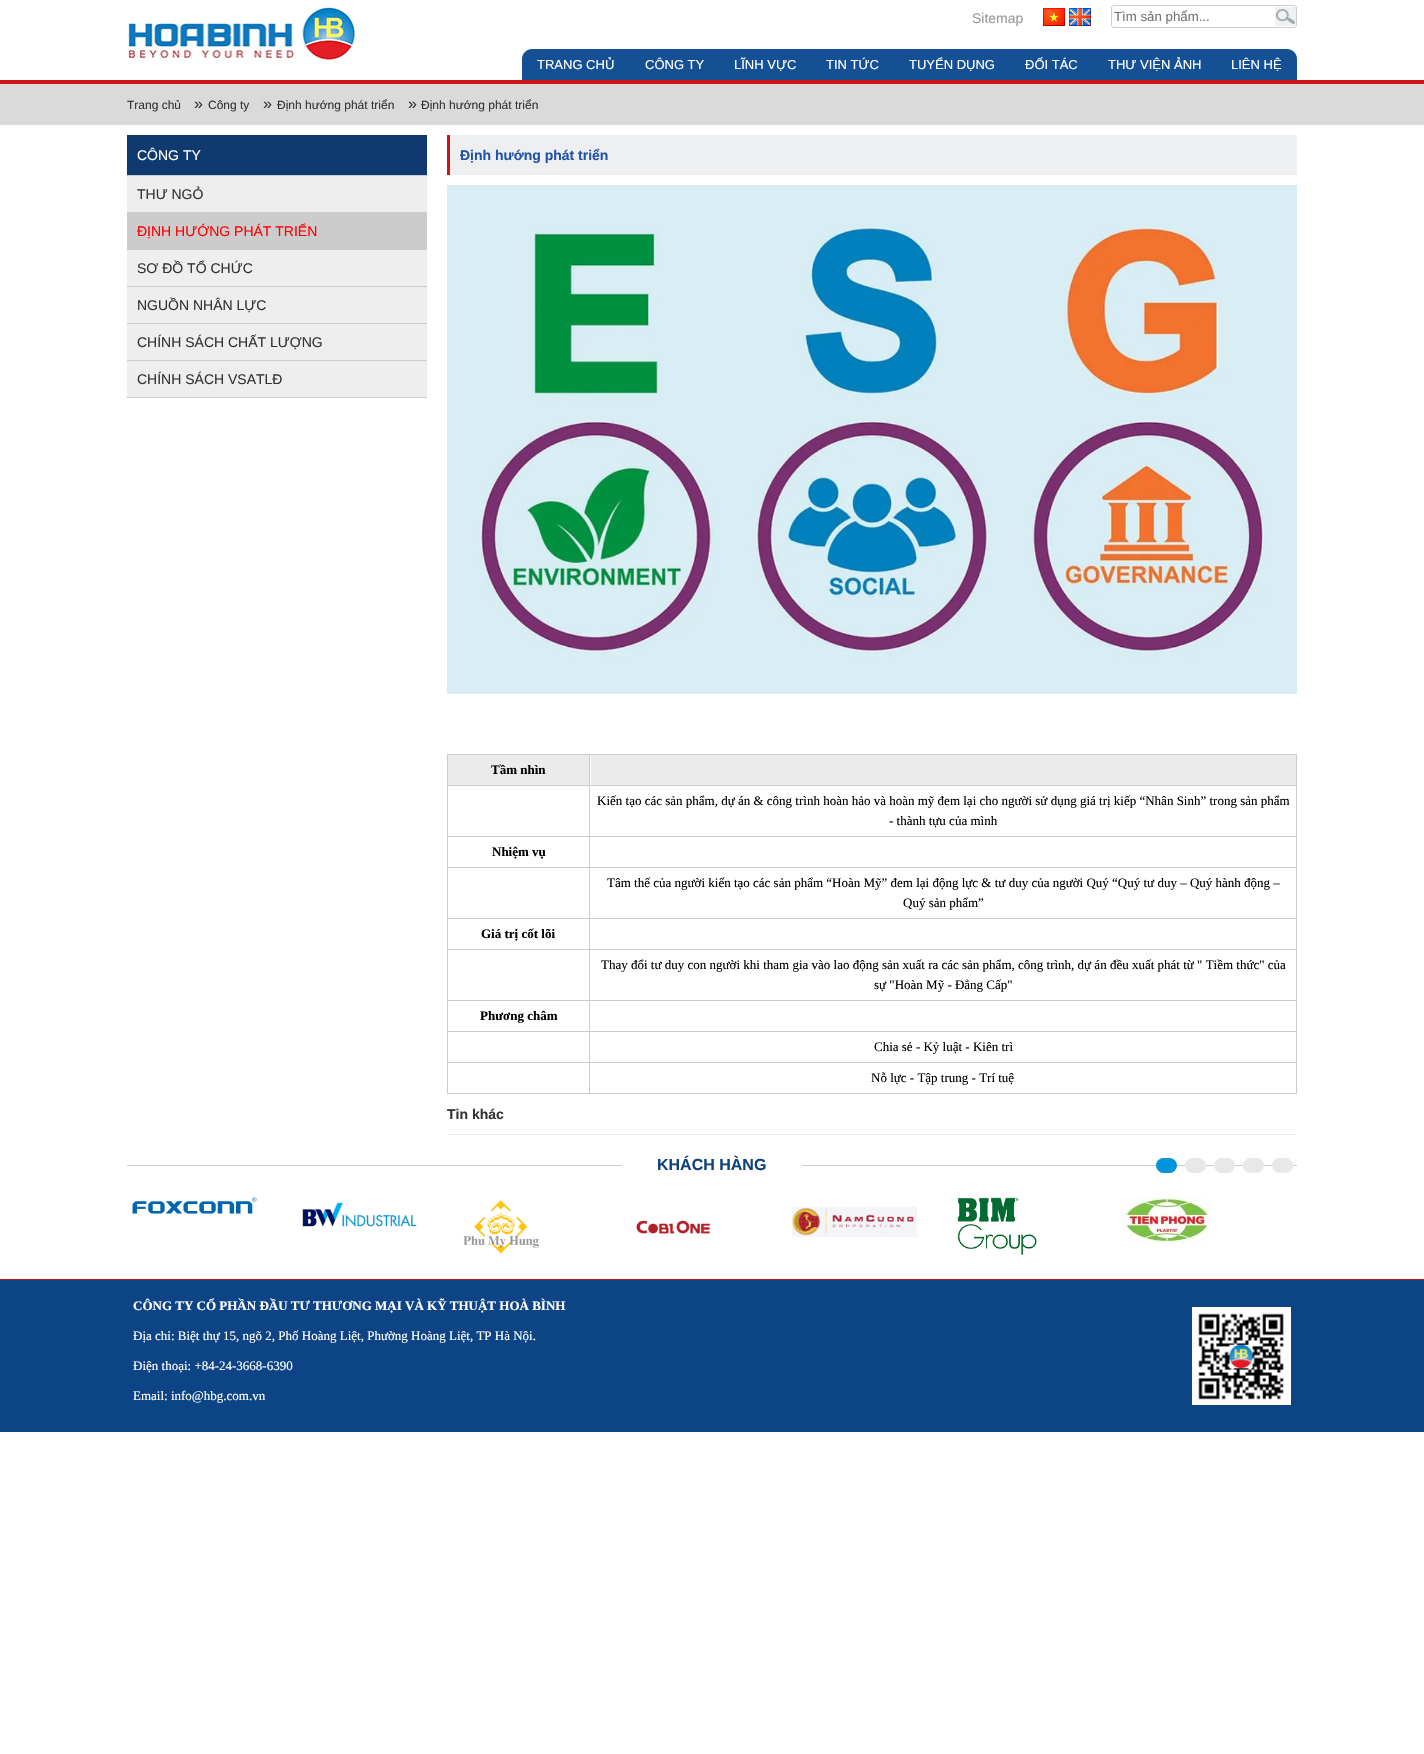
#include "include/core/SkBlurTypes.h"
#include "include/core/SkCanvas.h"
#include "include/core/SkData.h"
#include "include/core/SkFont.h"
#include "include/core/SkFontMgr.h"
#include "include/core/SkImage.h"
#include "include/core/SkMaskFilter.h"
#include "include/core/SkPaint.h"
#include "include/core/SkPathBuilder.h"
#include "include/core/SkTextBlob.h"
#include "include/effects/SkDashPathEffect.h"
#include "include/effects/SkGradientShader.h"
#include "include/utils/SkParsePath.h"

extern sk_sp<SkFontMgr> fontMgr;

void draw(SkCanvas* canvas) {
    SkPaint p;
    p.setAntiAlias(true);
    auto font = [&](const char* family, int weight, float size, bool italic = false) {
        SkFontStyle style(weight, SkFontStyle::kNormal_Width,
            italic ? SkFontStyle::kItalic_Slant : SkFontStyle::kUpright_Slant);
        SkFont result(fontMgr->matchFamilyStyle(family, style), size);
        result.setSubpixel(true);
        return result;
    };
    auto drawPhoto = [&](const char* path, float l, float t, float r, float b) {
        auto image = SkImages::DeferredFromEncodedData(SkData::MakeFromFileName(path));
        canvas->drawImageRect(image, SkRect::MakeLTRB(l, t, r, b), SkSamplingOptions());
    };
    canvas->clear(0xFFFFFFFF);
    p.setColor(0xFFCE1317);
    canvas->drawRect(SkRect::MakeLTRB(0, 80, 1424, 84), p);
    drawPhoto("media/1.png", 127, 5, 355, 62);
    auto font1 = font("Liberation Sans", 400, 14);
    p.setColor(0xFF999999);
    canvas->drawString("Sitemap", 972, 23, font1, p);
    drawPhoto("media/2.png", 1043, 8, 1065, 26);
    drawPhoto("media/3.png", 1069, 8, 1091, 26);
    drawPhoto("media/4.png", 1275, 7, 1296, 26);
    p.setStyle(SkPaint::kStroke_Style);
    p.setStrokeWidth(1);
    p.setColor(0xFFCCCCCC);
    canvas->drawRoundRect(SkRect::MakeLTRB(1111.5f, 5.5f, 1296.5f, 27.5f), 2.5f, 2.5f, p);
    auto font2 = font("Liberation Sans", 400, 13.25f);
    p.setStyle(SkPaint::kFill_Style);
    p.setColor(0xFF757575);
    canvas->drawString("Tìm sản phẩm...", 1114, 21, font2, p);
    p.setColor(0xFF165094);
    canvas->drawPath(SkPathBuilder().moveTo(532, 49).lineTo(1287, 49).cubicTo(1292.5f, 49, 1297, 53.5f, 1297, 59).lineTo(1297, 80).lineTo(522, 80).lineTo(522, 59).cubicTo(522, 53.5f, 526.5f, 49, 532, 49).close().detach(), p);
    auto font3 = font("Liberation Sans", 400, 13);
    p.setColor(0xFFFFFFFF);
    {
        const struct { const char* s; float x, y; } items[] = {
            {"TRANG CHỦ", 537, 69},
            {"CÔNG TY", 645, 69},
            {"LĨNH VỰC", 734, 69},
            {"TIN TỨC", 826, 69},
            {"TUYỂN DỤNG", 909, 69},
            {"ĐỐI TÁC", 1025, 69},
            {"THƯ VIỆN ẢNH", 1108, 69},
            {"LIÊN HỆ", 1231, 69},
        };
        for (auto [s, x, y] : items) {
            canvas->drawString(s, x, y, font3, p);
        }
    }
    p.setColor(0xFFDADADA);
    canvas->drawRect(SkRect::MakeLTRB(0, 84, 1424, 125), p);
    auto font4 = font("Liberation Sans", 400, 12);
    p.setColor(0xFF333333);
    canvas->drawString("Trang chủ", 127, 109, font4, p);
    auto font5 = font("Liberation Sans", 400, 16);
    canvas->drawString("»", 194, 109, font5, p);
    canvas->drawString("Công ty", 208, 109, font4, p);
    canvas->drawString("»", 263, 109, font5, p);
    canvas->drawString("Định hướng phát triển", 277, 109, font4, p);
    canvas->drawString("»", 408, 109, font5, p);
    canvas->drawString("Định hướng phát triển", 421, 109, font4, p);
    {
        const struct { float l, t, r, b; SkColor color; } items[] = {
            {127, 176, 427, 397, 0xFFEEEEEE},
            {127, 135, 427, 175, 0xFF0E3A6F},
            {127, 175, 427, 176, 0xFFCCCCCC},
        };
        for (auto [l, t, r, b, color] : items) {
            p.setColor(color);
            canvas->drawRect(SkRect::MakeLTRB(l, t, r, b), p);
        }
    }
    p.setColor(0xFFFFFFFF);
    canvas->drawString("CÔNG TY", 137, 160, font1, p);
    p.setColor(0xFFCCCCCC);
    canvas->drawRect(SkRect::MakeLTRB(127, 212, 427, 250), p);
    p.setColor(0xFF333333);
    canvas->drawString("THƯ NGỎ", 137, 199, font1, p);
    p.setColor(0xFFFF0000);
    canvas->drawString("ĐỊNH HƯỚNG PHÁT TRIỂN", 137, 236, font1, p);
    p.setColor(0xFFCCCCCC);
    canvas->drawRect(SkRect::MakeLTRB(127, 286, 427, 287), p);
    p.setColor(0xFF333333);
    canvas->drawString("SƠ ĐỒ TỔ CHỨC", 137, 273, font1, p);
    p.setColor(0xFFCCCCCC);
    canvas->drawRect(SkRect::MakeLTRB(127, 323, 427, 324), p);
    p.setColor(0xFF333333);
    canvas->drawString("NGUỒN NHÂN LỰC", 137, 310, font1, p);
    p.setColor(0xFFCCCCCC);
    canvas->drawRect(SkRect::MakeLTRB(127, 360, 427, 361), p);
    p.setColor(0xFF333333);
    canvas->drawString("CHÍNH SÁCH CHẤT LƯỢNG", 137, 347, font1, p);
    p.setColor(0xFFCCCCCC);
    canvas->drawRect(SkRect::MakeLTRB(127, 397, 427, 398), p);
    p.setColor(0xFF333333);
    canvas->drawString("CHÍNH SÁCH VSATLĐ", 137, 384, font1, p);
    p.setColor(0xFFEEEFF1);
    canvas->drawRect(SkRect::MakeLTRB(450, 135, 1297, 175), p);
    p.setColor(0xFFCE1317);
    canvas->drawRect(SkRect::MakeLTRB(447, 135, 450, 175), p);
    auto font6 = font("Liberation Sans", 700, 14);
    p.setColor(0xFF2053A9);
    canvas->drawString("Định hướng phát triển", 460, 160, font6, p);
    drawPhoto("media/5.png", 447, 185, 1297, 694);
    {
        const struct { float l, t, r, b; SkColor color; } items[] = {
            {447, 754, 1297, 755, 0xFFCCCCCC},
            {1296, 754, 1297, 1094, 0xFFCCCCCC},
            {447, 1093, 1297, 1094, 0xFFCCCCCC},
            {447, 754, 448, 1094, 0xFFCCCCCC},
            {448, 755, 589, 785, 0xFFEBEBEB},
            {589, 1062, 590, 1094, 0xFFCCCCCC},
            {589, 1062, 1297, 1063, 0xFFCCCCCC},
            {589, 1031, 590, 1063, 0xFFCCCCCC},
            {589, 1031, 1297, 1032, 0xFFCCCCCC},
            {589, 1000, 590, 1032, 0xFFCCCCCC},
            {589, 1000, 1297, 1001, 0xFFCCCCCC},
            {589, 949, 590, 1001, 0xFFCCCCCC},
            {589, 949, 1297, 950, 0xFFCCCCCC},
            {589, 918, 590, 950, 0xFFCCCCCC},
            {589, 918, 1297, 919, 0xFFCCCCCC},
            {589, 867, 590, 919, 0xFFCCCCCC},
            {589, 867, 1297, 868, 0xFFCCCCCC},
            {589, 836, 590, 868, 0xFFCCCCCC},
            {589, 836, 1297, 837, 0xFFCCCCCC},
            {589, 785, 590, 837, 0xFFCCCCCC},
            {589, 785, 1297, 786, 0xFFCCCCCC},
            {589, 754, 590, 786, 0xFFCCCCCC},
            {447, 785, 590, 786, 0xFFCCCCCC},
        };
        for (auto [l, t, r, b, color] : items) {
            p.setColor(color);
            canvas->drawRect(SkRect::MakeLTRB(l, t, r, b), p);
        }
    }
    auto font7 = font("Liberation Serif", 700, 13);
    p.setColor(0xFF000000);
    canvas->drawString("Tầm nhìn", 491, 774, font7, p);
    p.setColor(0xFFEBEBEB);
    canvas->drawRect(SkRect::MakeLTRB(591, 755, 1296, 785), p);
    p.setColor(0xFFCCCCCC);
    canvas->drawRect(SkRect::MakeLTRB(447, 836, 590, 837), p);
    auto font8 = font("Liberation Serif", 400, 13);
    p.setColor(0xFF000000);
    canvas->drawString("Kiến tạo các sản phẩm, dự án & công trình hoàn hảo và hoàn mỹ đem lại cho người sử dụng giá trị kiếp “Nhân Sinh” trong sản phẩm", 597, 805, font8, p);
    canvas->drawString("- thành tựu của mình", 889, 825, font8, p);
    p.setColor(0xFFCCCCCC);
    canvas->drawRect(SkRect::MakeLTRB(447, 867, 590, 868), p);
    p.setColor(0xFF000000);
    canvas->drawString("Nhiệm vụ", 492, 856, font7, p);
    p.setColor(0xFFCCCCCC);
    canvas->drawRect(SkRect::MakeLTRB(447, 918, 590, 919), p);
    p.setColor(0xFF000000);
    canvas->drawString("Tâm thế của người kiến tạo các sản phẩm “Hoàn Mỹ” đem lại động lực & tư duy của người Quý “Quý tư duy – Quý hành động –", 607, 887, font8, p);
    canvas->drawString("Quý sản phẩm”", 903, 907, font8, p);
    p.setColor(0xFFCCCCCC);
    canvas->drawRect(SkRect::MakeLTRB(447, 949, 590, 950), p);
    p.setColor(0xFF000000);
    canvas->drawString("Giá trị cốt lõi", 481, 938, font7, p);
    p.setColor(0xFFCCCCCC);
    canvas->drawRect(SkRect::MakeLTRB(447, 1000, 590, 1001), p);
    p.setColor(0xFF000000);
    canvas->drawString("Thay đổi tư duy con người khi tham gia vào lao động sản xuất ra các sản phẩm, công trình, dự án đều xuất phát từ \" Tiềm thức\" của", 601, 969, font8, p);
    canvas->drawString("sự \"Hoàn Mỹ - Đẳng Cấp\"", 874, 989, font8, p);
    p.setColor(0xFFCCCCCC);
    canvas->drawRect(SkRect::MakeLTRB(447, 1031, 590, 1032), p);
    p.setColor(0xFF000000);
    canvas->drawString("Phương châm", 480, 1020, font7, p);
    p.setColor(0xFFCCCCCC);
    canvas->drawRect(SkRect::MakeLTRB(447, 1062, 590, 1063), p);
    p.setColor(0xFF000000);
    canvas->drawString("Chia sẻ - Kỷ luật - Kiên trì", 874, 1051, font8, p);
    canvas->drawString("Nỗ lực - Tập trung - Trí tuệ", 871, 1082, font8, p);
    p.setColor(0xFFEEEEEE);
    canvas->drawRect(SkRect::MakeLTRB(447, 1134, 1297, 1135), p);
    p.setColor(0xFF333333);
    canvas->drawString("Tin khác", 447, 1119, font6, p);
    p.setColor(0xFFCCCCCC);
    canvas->drawRect(SkRect::MakeLTRB(127, 1165, 1297, 1166), p);
    p.setColor(0xFFFFFFFF);
    canvas->drawRect(SkRect::MakeLTRB(622, 1165, 802, 1166), p);
    auto font9 = font("Liberation Sans", 700, 16);
    p.setColor(0xFF11427C);
    canvas->drawString("KHÁCH HÀNG", 657, 1170, font9, p);
    p.setColor(0xFF0095DA);
    canvas->drawRoundRect(SkRect::MakeLTRB(1156, 1158, 1177, 1173), 7.5f, 7.5f, p);
    p.setColor(0xFFE8E8E8);
    canvas->drawRoundRect(SkRect::MakeLTRB(1185, 1158, 1206, 1173), 7.5f, 7.5f, p);
    canvas->drawRoundRect(SkRect::MakeLTRB(1214, 1158, 1235, 1173), 7.5f, 7.5f, p);
    canvas->drawRoundRect(SkRect::MakeLTRB(1243, 1158, 1264, 1173), 7.5f, 7.5f, p);
    canvas->drawRoundRect(SkRect::MakeLTRB(1272, 1158, 1293, 1173), 7.5f, 7.5f, p);
    drawPhoto("media/6.png", 132, 1197, 257, 1214);
    drawPhoto("media/7.png", 302, 1202, 417, 1227);
    drawPhoto("media/8.png", 463, 1200, 539, 1254);
    drawPhoto("media/9.png", 636, 1220, 710, 1234);
    drawPhoto("media/10.png", 792, 1207, 917, 1237);
    drawPhoto("media/11.png", 957, 1197, 1037, 1255);
    drawPhoto("media/12.png", 1122, 1197, 1212, 1244);
    p.setColor(0xFF0D4485);
    canvas->drawRect(SkRect::MakeLTRB(0, 1280, 1424, 1432), p);
    p.setColor(0xFFCE1317);
    canvas->drawRect(SkRect::MakeLTRB(0, 1279, 1424, 1280), p);
    p.setColor(0xFFFFFFFF);
    canvas->drawString("CÔNG TY CỔ PHẦN ĐẦU TƯ THƯƠNG MẠI VÀ KỸ THUẬT HOÀ BÌNH", 133, 1310, font7, p);
    {
        const struct { const char* s; float x, y; } items[] = {
            {"Địa chỉ: Biệt thự 15, ngõ 2, Phố Hoàng Liệt, Phường Hoàng Liệt, TP Hà Nội.", 133, 1340},
            {"Điện thoại: +84-24-3668-6390", 133, 1370},
            {"Email: info@hbg.com.vn", 133, 1400},
        };
        for (auto [s, x, y] : items) {
            canvas->drawString(s, x, y, font8, p);
        }
    }
    drawPhoto("media/13.png", 1192, 1307, 1291, 1405);
}
